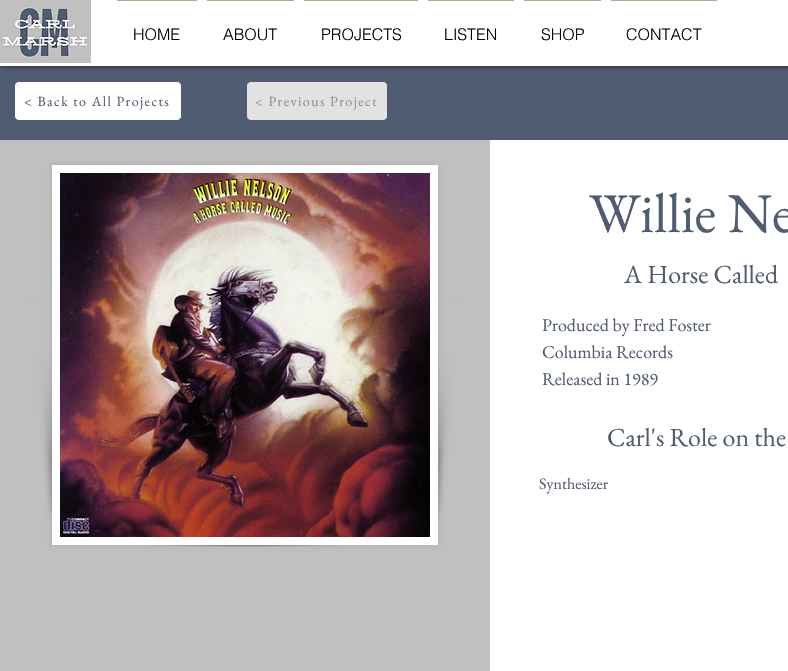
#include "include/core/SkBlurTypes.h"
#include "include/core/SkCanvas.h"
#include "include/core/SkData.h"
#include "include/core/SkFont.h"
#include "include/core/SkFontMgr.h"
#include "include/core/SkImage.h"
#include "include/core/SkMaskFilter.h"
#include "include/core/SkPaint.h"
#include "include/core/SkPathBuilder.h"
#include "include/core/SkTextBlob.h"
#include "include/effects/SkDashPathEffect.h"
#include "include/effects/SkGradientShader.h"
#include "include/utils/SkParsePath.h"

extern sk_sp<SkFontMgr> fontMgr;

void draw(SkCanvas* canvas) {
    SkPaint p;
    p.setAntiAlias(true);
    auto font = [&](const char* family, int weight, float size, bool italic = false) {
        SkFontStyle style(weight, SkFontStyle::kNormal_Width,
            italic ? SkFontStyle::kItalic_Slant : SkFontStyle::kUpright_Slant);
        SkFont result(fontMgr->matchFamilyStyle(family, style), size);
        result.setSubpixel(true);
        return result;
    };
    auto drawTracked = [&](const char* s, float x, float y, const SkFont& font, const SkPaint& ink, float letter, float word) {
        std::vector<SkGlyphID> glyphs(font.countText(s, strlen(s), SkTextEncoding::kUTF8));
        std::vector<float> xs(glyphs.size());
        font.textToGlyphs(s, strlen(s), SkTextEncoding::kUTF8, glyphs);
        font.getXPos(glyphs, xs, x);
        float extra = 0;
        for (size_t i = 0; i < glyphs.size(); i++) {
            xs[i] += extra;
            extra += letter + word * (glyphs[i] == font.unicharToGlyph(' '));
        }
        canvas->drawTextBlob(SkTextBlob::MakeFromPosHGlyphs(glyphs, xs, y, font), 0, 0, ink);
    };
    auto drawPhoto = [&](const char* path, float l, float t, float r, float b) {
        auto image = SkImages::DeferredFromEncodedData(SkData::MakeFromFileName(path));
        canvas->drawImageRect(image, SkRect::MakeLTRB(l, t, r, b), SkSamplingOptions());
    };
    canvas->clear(0xFF505C71);
    p.setColor(0xB3000000);
    p.setMaskFilter(SkMaskFilter::MakeBlur(kNormal_SkBlurStyle, 2.5f));
    canvas->drawRect(SkRect::MakeLTRB(0, 0, 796, 66), p);
    p.setMaskFilter(nullptr);
    p.setColor(0xFFFFFFFF);
    canvas->drawRect(SkRect::MakeLTRB(0, 0, 788, 66), p);
    drawPhoto("media/1.png", 0, 0, 91, 63);
    p.setColor(0xFFB9A785);
    canvas->drawRect(SkRect::MakeLTRB(117, 0, 197, 1), p);
    auto font1 = font("helvetica", 300, 16);
    p.setColor(0xFF010101);
    canvas->drawString("HOME", 133, 40, font1, p);
    p.setColor(0xFFB9A785);
    canvas->drawRect(SkRect::MakeLTRB(207, 0, 294, 1), p);
    p.setColor(0xFF010101);
    canvas->drawString("ABOUT", 223, 40, font1, p);
    p.setColor(0xFFB9A785);
    canvas->drawRect(SkRect::MakeLTRB(304, 0, 418, 1), p);
    p.setColor(0xFF010101);
    canvas->drawString("PROJECTS", 321, 40, font1, p);
    p.setColor(0xFFB9A785);
    canvas->drawRect(SkRect::MakeLTRB(428, 0, 514, 1), p);
    p.setColor(0xFF010101);
    canvas->drawString("LISTEN", 444, 40, font1, p);
    p.setColor(0xFFB9A785);
    canvas->drawRect(SkRect::MakeLTRB(524, 0, 601, 1), p);
    p.setColor(0xFF010101);
    canvas->drawString("SHOP", 541, 40, font1, p);
    p.setColor(0xFFB9A785);
    canvas->drawRect(SkRect::MakeLTRB(611, 0, 717, 1), p);
    p.setColor(0xFF010101);
    canvas->drawString("CONTACT", 626, 40, font1, p);
    p.setColor(0xFFFFFFFF);
    canvas->drawRoundRect(SkRect::MakeLTRB(14.5f, 81.5f, 181.5f, 120.5f), 4.5f, 4.5f, p);
    p.setStyle(SkPaint::kStroke_Style);
    p.setStrokeWidth(1);
    p.setColor(0xFF505C71);
    canvas->drawRoundRect(SkRect::MakeLTRB(14.5f, 81.5f, 181.5f, 120.5f), 4.5f, 4.5f, p);
    auto font2 = font("EB Garamond", 400, 14);
    p.setStyle(SkPaint::kFill_Style);
    drawTracked("< Back to All Projects", 24, 106, font2, p, 1.4f, 0);
    p.setColor(0xFFE2E2E2);
    canvas->drawRoundRect(SkRect::MakeLTRB(246.5f, 81.5f, 387.5f, 120.5f), 4.5f, 4.5f, p);
    p.setStyle(SkPaint::kStroke_Style);
    p.setColor(0xFF505C71);
    canvas->drawRoundRect(SkRect::MakeLTRB(246.5f, 81.5f, 387.5f, 120.5f), 4.5f, 4.5f, p);
    p.setStyle(SkPaint::kFill_Style);
    p.setColor(0xFF8F8F8F);
    drawTracked("< Previous Project", 255, 106, font2, p, 1.4f, 0);
    p.setColor(0xFFC0C0C0);
    canvas->drawRect(SkRect::MakeLTRB(0, 140, 490, 671), p);
    p.setColor(0x1A000000);
    p.setMaskFilter(SkMaskFilter::MakeBlur(kNormal_SkBlurStyle, 2.5f));
    canvas->drawRect(SkRect::MakeLTRB(52, 165, 438, 545), p);
    p.setMaskFilter(nullptr);
    drawPhoto("media/2.png", 28, 300, 52, 520);
    p.setColor(0xFFFFFFFF);
    canvas->drawRect(SkRect::MakeLTRB(52, 165, 438, 545), p);
    drawPhoto("media/3.png", 60, 173, 430, 537);
    drawPhoto("media/4.png", 151, 545, 339, 547);
    drawPhoto("media/5.png", 438, 300, 462, 520);
    canvas->drawRect(SkRect::MakeLTRB(490, 140, 788, 671), p);
    auto font3 = font("EB Garamond", 400, 56);
    p.setColor(0xFF505C71);
    canvas->drawString("Willie Ne", 589, 232, font3, p);
    auto font4 = font("EB Garamond", 400, 26);
    canvas->drawString("A Horse Called", 624, 283, font4, p);
    auto font5 = font("EB Garamond", 400, 18);
    {
        const struct { const char* s; float x, y; } items[] = {
            {"Produced by Fred Foster", 542, 331},
            {"Columbia Records", 542, 358},
            {"Released in 1989", 542, 385},
        };
        for (auto [s, x, y] : items) {
            canvas->drawString(s, x, y, font5, p);
        }
    }
    canvas->drawString("Carl's Role on the", 607, 446, font4, p);
    auto font6 = font("EB Garamond", 400, 16);
    canvas->drawString("Synthesizer", 539, 489, font6, p);
}
